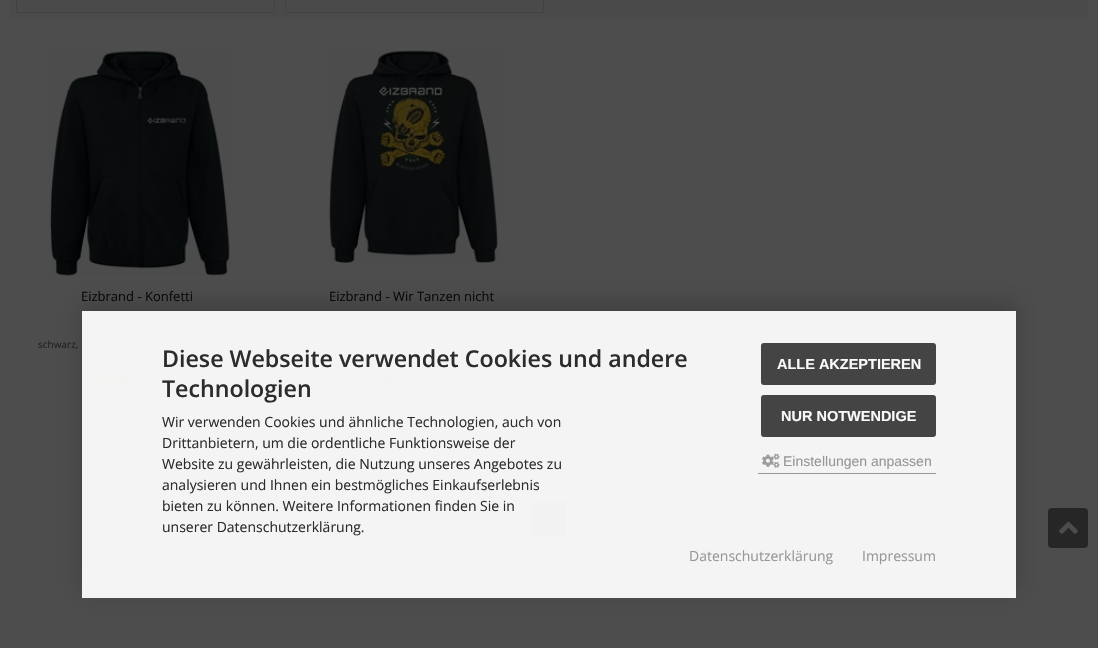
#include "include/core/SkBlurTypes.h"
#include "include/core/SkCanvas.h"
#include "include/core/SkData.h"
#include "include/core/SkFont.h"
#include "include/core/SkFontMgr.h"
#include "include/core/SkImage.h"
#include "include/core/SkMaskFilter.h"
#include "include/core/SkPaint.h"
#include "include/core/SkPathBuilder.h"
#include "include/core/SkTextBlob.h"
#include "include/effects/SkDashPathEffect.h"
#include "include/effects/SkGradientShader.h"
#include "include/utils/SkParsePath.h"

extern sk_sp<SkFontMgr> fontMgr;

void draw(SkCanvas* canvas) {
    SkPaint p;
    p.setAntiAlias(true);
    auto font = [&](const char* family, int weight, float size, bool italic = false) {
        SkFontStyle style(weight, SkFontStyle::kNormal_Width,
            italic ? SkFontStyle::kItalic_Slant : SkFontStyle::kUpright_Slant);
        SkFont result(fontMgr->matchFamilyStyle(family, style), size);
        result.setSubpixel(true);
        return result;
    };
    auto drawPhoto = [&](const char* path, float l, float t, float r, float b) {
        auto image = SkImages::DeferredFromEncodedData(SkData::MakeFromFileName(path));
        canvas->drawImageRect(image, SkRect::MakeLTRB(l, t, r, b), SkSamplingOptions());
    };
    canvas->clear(0xFF4D4D4D);
    p.setColor(0xFF4A4A4A);
    canvas->drawRect(SkRect::MakeLTRB(10, 0, 1088, 19), p);
    p.setStyle(SkPaint::kStroke_Style);
    p.setStrokeWidth(1);
    p.setColor(0xFF424242);
    canvas->drawRoundRect(SkRect::MakeLTRB(16.5f, -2.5f, 274.5f, 12.5f), 1.5f, 1.5f, p);
    canvas->drawRoundRect(SkRect::MakeLTRB(285.5f, -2.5f, 543.5f, 12.5f), 1.5f, 1.5f, p);
    drawPhoto("media/1.png", 49, 50, 230, 276);
    auto font1 = font("Open Sans", 400, 13);
    p.setStyle(SkPaint::kFill_Style);
    p.setColor(0xFF0A0A0A);
    canvas->drawString("Eizbrand - Konfetti", 81, 301, font1, p);
    auto font2 = font("Open Sans", 400, 10);
    p.setColor(0xFF1F1F1F);
    canvas->drawString("schwarz,", 38, 348, font2, p);
    drawPhoto("media/2.png", 97, 378, 129, 387);
    drawPhoto("media/3.png", 329, 50, 498, 263);
    p.setColor(0xFF0A0A0A);
    canvas->drawString("Eizbrand - Wir Tanzen nicht", 329, 301, font1, p);
    drawPhoto("media/2.png", 371, 378, 403, 387);
    p.setColor(0xFF38140F);
    canvas->drawRoundRect(SkRect::MakeLTRB(531.5f, 501.5f, 566.5f, 536.5f), 3.5f, 3.5f, p);
    p.setStyle(SkPaint::kStroke_Style);
    p.setColor(0xFF152314);
    canvas->drawRoundRect(SkRect::MakeLTRB(531.5f, 501.5f, 566.5f, 536.5f), 3.5f, 3.5f, p);
    p.setStyle(SkPaint::kFill_Style);
    p.setColor(0xFF262626);
    canvas->drawRoundRect(SkRect::MakeLTRB(1048, 508, 1088, 548), 4, 4, p);
    drawPhoto("media/4.png", 1059, 521, 1078, 534);
    canvas->save();
    canvas->clipPath(SkPathBuilder(SkPathFillType::kEvenOdd).moveTo(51, 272).lineTo(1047, 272).lineTo(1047, 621).lineTo(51, 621).close().moveTo(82, 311).lineTo(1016, 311).lineTo(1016, 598).lineTo(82, 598).close().detach(), true);
    p.setColor(0x30000000);
    p.setMaskFilter(SkMaskFilter::MakeBlur(kNormal_SkBlurStyle, 10));
    canvas->drawRect(SkRect::MakeLTRB(82, 303, 1016, 590), p);
    p.setMaskFilter(nullptr);
    canvas->restore();
    p.setColor(0xF7F9F9F9);
    canvas->drawRect(SkRect::MakeLTRB(82, 311, 1016, 598), p);
    auto font3 = font("Open Sans", 600, 23.2f);
    p.setColor(0xFF2C2C2C);
    canvas->drawString("Diese Webseite verwendet Cookies und andere", 162, 367, font3, p);
    canvas->drawString("Technologien", 162, 397, font3, p);
    auto font4 = font("Open Sans", 400, 14);
    {
        const struct { const char* s; float x, y; } items[] = {
            {"Wir verwenden Cookies und ähnliche Technologien, auch von", 162, 427},
            {"Drittanbietern, um die ordentliche Funktionsweise der", 162, 448},
            {"Website zu gewährleisten, die Nutzung unseres Angebotes zu", 162, 469},
            {"analysieren und Ihnen ein bestmögliches Einkaufserlebnis", 162, 490},
            {"bieten zu können. Weitere Informationen finden Sie in", 162, 511},
            {"unserer Datenschutzerklärung.", 162, 532},
        };
        for (auto [s, x, y] : items) {
            canvas->drawString(s, x, y, font4, p);
        }
    }
    p.setColor(0xFF444444);
    canvas->drawRoundRect(SkRect::MakeLTRB(761, 343, 936, 385), 3, 3, p);
    auto font5 = font("Liberation Sans", 700, 14.5f);
    p.setColor(0xFFFAFAFA);
    canvas->drawString("ALLE AKZEPTIEREN", 777, 369, font5, p);
    p.setColor(0xFF444444);
    canvas->drawRoundRect(SkRect::MakeLTRB(761, 395, 936, 437), 3, 3, p);
    p.setColor(0xFFFAFAFA);
    canvas->drawString("NUR NOTWENDIGE", 781, 421, font5, p);
    p.setColor(0xFF979797);
    canvas->drawRect(SkRect::MakeLTRB(758, 473, 936, 474), p);
    drawPhoto("media/5.png", 762, 453, 780, 468);
    auto font6 = font("Liberation Sans", 400, 14);
    canvas->drawString("Einstellungen anpassen", 783, 466, font6, p);
    canvas->drawString("Datenschutzerklärung", 689, 561, font4, p);
    canvas->drawString("Impressum", 862, 561, font4, p);
}
